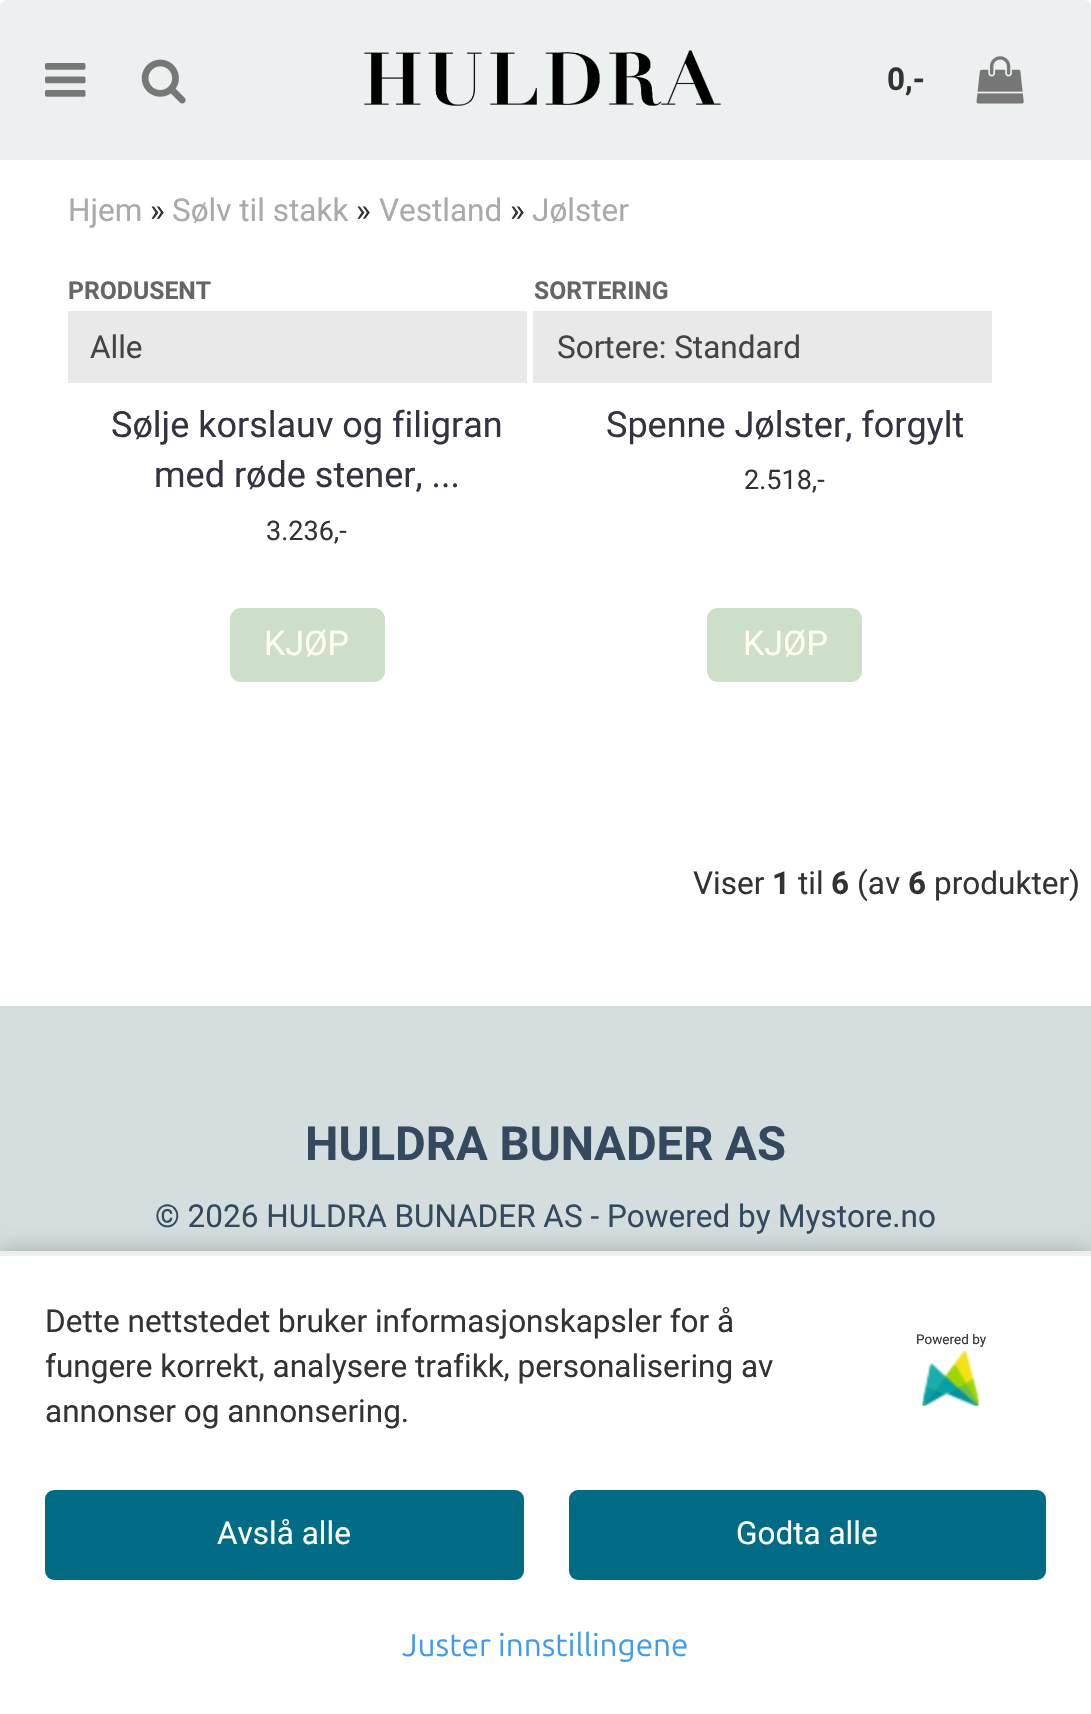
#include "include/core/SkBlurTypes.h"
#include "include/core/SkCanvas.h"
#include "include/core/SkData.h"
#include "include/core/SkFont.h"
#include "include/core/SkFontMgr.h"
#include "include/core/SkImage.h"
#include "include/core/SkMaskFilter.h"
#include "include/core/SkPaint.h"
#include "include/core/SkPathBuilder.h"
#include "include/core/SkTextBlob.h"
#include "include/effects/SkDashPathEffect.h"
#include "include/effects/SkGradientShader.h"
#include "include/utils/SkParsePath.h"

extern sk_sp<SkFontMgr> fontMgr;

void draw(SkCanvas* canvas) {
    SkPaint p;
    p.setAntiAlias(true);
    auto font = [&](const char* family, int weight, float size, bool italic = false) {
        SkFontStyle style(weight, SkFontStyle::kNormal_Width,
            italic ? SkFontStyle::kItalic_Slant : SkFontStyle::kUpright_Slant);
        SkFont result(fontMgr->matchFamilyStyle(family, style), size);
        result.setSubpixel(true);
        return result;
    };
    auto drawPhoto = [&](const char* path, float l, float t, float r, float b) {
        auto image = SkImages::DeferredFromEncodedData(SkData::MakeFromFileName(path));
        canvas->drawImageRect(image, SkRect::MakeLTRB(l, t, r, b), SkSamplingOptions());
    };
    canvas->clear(0xFFFFFFFF);
    p.setColor(0xFFECF0F1);
    canvas->drawPath(SkPathBuilder().moveTo(7, 0).lineTo(1084, 0).cubicTo(1088, 0, 1091, 3, 1091, 7).lineTo(1091, 160).lineTo(0, 160).lineTo(0, 7).cubicTo(0, 3, 3, 0, 7, 0).close().detach(), p);
    drawPhoto("media/1.png", 45, 63, 86, 97);
    drawPhoto("media/2.png", 141, 59, 186, 104);
    drawPhoto("media/3.png", 364, 50, 721, 106);
    auto font1 = font("Roboto", 700, 31.5f);
    p.setColor(0xFF333333);
    canvas->drawString("0,-", 887, 90, font1, p);
    drawPhoto("media/4.png", 976, 56, 1024, 104);
    auto font2 = font("Roboto", 400, 31.5f);
    p.setColor(0xFFAAAAAA);
    canvas->drawString("Hjem", 68, 221, font2, p);
    p.setColor(0xFF333333);
    canvas->drawString("»", 150, 221, font2, p);
    p.setColor(0xFFAAAAAA);
    canvas->drawString("Sølv til stakk", 172, 221, font2, p);
    p.setColor(0xFF333333);
    canvas->drawString("»", 356, 221, font2, p);
    p.setColor(0xFFAAAAAA);
    canvas->drawString("Vestland", 379, 221, font2, p);
    p.setColor(0xFF333333);
    canvas->drawString("»", 510, 221, font2, p);
    p.setColor(0xFFAAAAAA);
    canvas->drawString("Jølster", 532, 221, font2, p);
    auto font3 = font("Roboto", 700, 24.75f);
    p.setColor(0xFF666666);
    canvas->drawString("PRODUSENT", 68, 299, font3, p);
    p.setColor(0xFFE9E9E9);
    canvas->drawRect(SkRect::MakeLTRB(68, 311, 527, 383), p);
    p.setColor(0xFF444444);
    canvas->drawString("Alle", 90, 358, font2, p);
    p.setColor(0xFF666666);
    canvas->drawString("SORTERING", 534, 299, font3, p);
    p.setColor(0xFFE9E9E9);
    canvas->drawRect(SkRect::MakeLTRB(533, 311, 992, 383), p);
    p.setColor(0xFF444444);
    canvas->drawString("Sortere: Standard", 557, 358, font2, p);
    auto font4 = font("Roboto", 400, 36);
    p.setColor(0xFF363241);
    canvas->drawString("Sølje korslauv og filigran", 111, 437, font4, p);
    canvas->drawString("med røde stener, ...", 154, 487, font4, p);
    auto font5 = font("Roboto", 400, 27);
    p.setColor(0xFF333333);
    canvas->drawString("3.236,-", 266, 540, font5, p);
    p.setColor(0xFFCDDEC9);
    canvas->drawRoundRect(SkRect::MakeLTRB(231, 609, 384, 681), 10, 10, p);
    p.setStyle(SkPaint::kStroke_Style);
    p.setStrokeWidth(2);
    canvas->drawRoundRect(SkRect::MakeLTRB(231, 609, 384, 681), 10, 10, p);
    auto font6 = font("Roboto", 400, 34);
    p.setStyle(SkPaint::kFill_Style);
    p.setColor(0xFFFFFFEE);
    canvas->drawString("KJØP", 264, 655, font6, p);
    p.setColor(0xFF363241);
    canvas->drawString("Spenne Jølster, forgylt", 606, 437, font4, p);
    p.setColor(0xFF333333);
    canvas->drawString("2.518,-", 744, 489, font5, p);
    p.setColor(0xFFCDDEC9);
    canvas->drawRoundRect(SkRect::MakeLTRB(708, 609, 861, 681), 10, 10, p);
    p.setStyle(SkPaint::kStroke_Style);
    canvas->drawRoundRect(SkRect::MakeLTRB(708, 609, 861, 681), 10, 10, p);
    p.setStyle(SkPaint::kFill_Style);
    p.setColor(0xFFFFFFEE);
    canvas->drawString("KJØP", 743, 655, font6, p);
    p.setColor(0xFF333333);
    canvas->drawString("Viser", 693, 894, font2, p);
    canvas->drawString("1", 772, 894, font1, p);
    canvas->drawString("til", 798, 894, font2, p);
    canvas->drawString("6", 831, 894, font1, p);
    canvas->drawString("(av", 857, 894, font2, p);
    canvas->drawString("6", 908, 894, font1, p);
    canvas->drawString("produkter)", 934, 894, font2, p);
    p.setColor(0xFFD4DEDE);
    canvas->drawRect(SkRect::MakeLTRB(0, 1006, 1091, 1251), p);
    auto font7 = font("Roboto", 700, 47.25f);
    p.setColor(0xFF34495E);
    canvas->drawString("HULDRA BUNADER AS", 305, 1160, font7, p);
    canvas->drawString("© 2026 HULDRA BUNADER AS - Powered by", 155, 1227, font2, p);
    canvas->drawString("Mystore.no", 778, 1227, font2, p);
    p.setColor(0x40000000);
    p.setMaskFilter(SkMaskFilter::MakeBlur(kNormal_SkBlurStyle, 11));
    canvas->drawRect(SkRect::MakeLTRB(0, 1251, 1091, 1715), p);
    p.setMaskFilter(nullptr);
    p.setColor(0xFFFFFFFF);
    canvas->drawRect(SkRect::MakeLTRB(0, 1256, 1091, 1714), p);
    p.setColor(0xFFEEEEEE);
    canvas->drawRect(SkRect::MakeLTRB(0, 1251, 1091, 1256), p);
    p.setColor(0xFF333333);
    {
        const struct { const char* s; float x, y; } items[] = {
            {"Dette nettstedet bruker informasjonskapsler for å", 45, 1332},
            {"fungere korrekt, analysere trafikk, personalisering av", 45, 1377},
            {"annonser og annonsering.", 45, 1422},
        };
        for (auto [s, x, y] : items) {
            canvas->drawString(s, x, y, font2, p);
        }
    }
    auto font8 = font("Roboto", 400, 13.5f);
    canvas->drawString("Powered by", 916, 1344, font8, p);
    drawPhoto("media/5.png", 922, 1349, 979, 1407);
    p.setColor(0xFF026B85);
    canvas->drawRoundRect(SkRect::MakeLTRB(45, 1490, 524, 1580), 9, 9, p);
    p.setColor(0xFFFFFFFF);
    canvas->drawString("Avslå alle", 217, 1544, font2, p);
    p.setColor(0xFF026B85);
    canvas->drawRoundRect(SkRect::MakeLTRB(569, 1490, 1046, 1580), 9, 9, p);
    p.setColor(0xFFFFFFFF);
    canvas->drawString("Godta alle", 736, 1544, font2, p);
    auto font9 = font("Ubuntu", 400, 31.5f);
    p.setColor(0xFF409AEF);
    canvas->drawString("Juster innstillingene", 402, 1656, font9, p);
}
